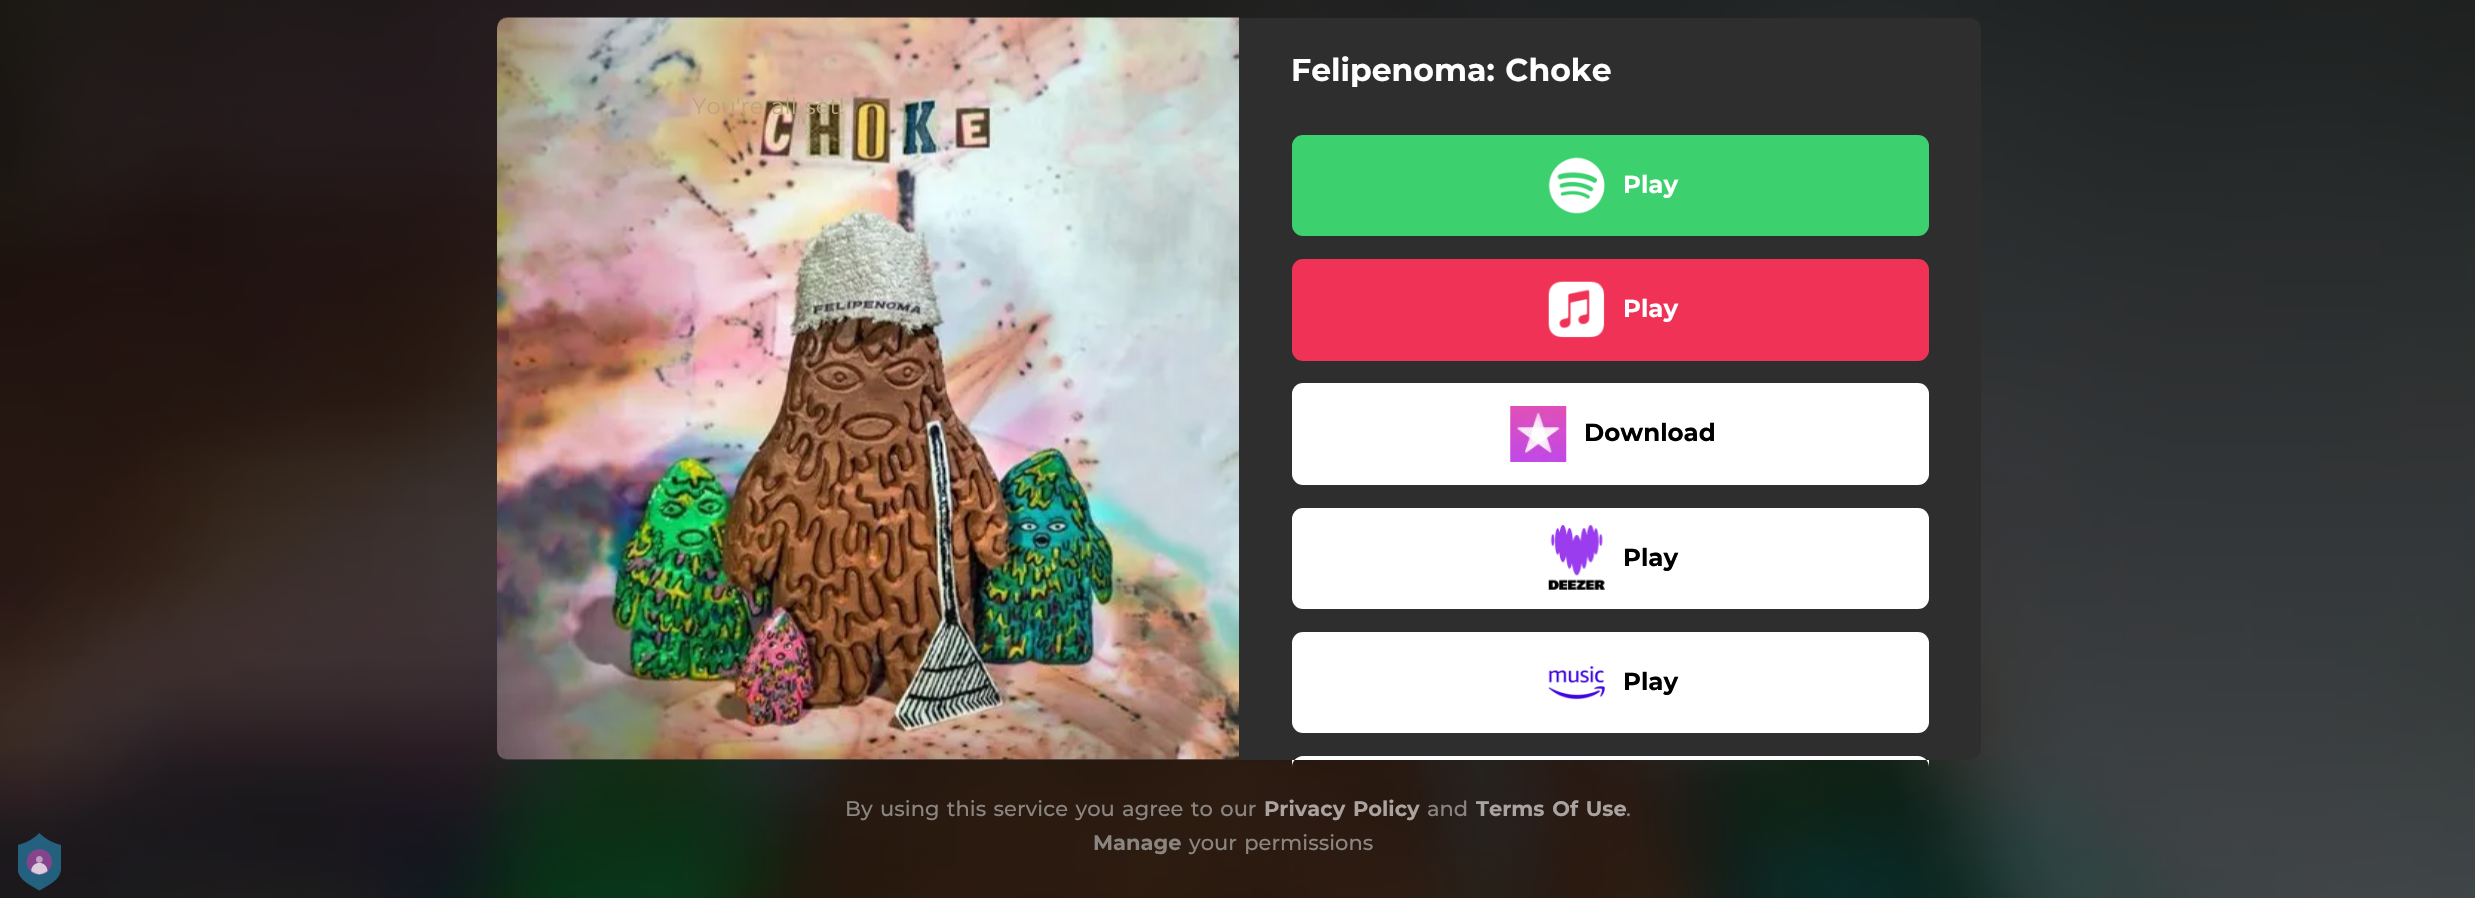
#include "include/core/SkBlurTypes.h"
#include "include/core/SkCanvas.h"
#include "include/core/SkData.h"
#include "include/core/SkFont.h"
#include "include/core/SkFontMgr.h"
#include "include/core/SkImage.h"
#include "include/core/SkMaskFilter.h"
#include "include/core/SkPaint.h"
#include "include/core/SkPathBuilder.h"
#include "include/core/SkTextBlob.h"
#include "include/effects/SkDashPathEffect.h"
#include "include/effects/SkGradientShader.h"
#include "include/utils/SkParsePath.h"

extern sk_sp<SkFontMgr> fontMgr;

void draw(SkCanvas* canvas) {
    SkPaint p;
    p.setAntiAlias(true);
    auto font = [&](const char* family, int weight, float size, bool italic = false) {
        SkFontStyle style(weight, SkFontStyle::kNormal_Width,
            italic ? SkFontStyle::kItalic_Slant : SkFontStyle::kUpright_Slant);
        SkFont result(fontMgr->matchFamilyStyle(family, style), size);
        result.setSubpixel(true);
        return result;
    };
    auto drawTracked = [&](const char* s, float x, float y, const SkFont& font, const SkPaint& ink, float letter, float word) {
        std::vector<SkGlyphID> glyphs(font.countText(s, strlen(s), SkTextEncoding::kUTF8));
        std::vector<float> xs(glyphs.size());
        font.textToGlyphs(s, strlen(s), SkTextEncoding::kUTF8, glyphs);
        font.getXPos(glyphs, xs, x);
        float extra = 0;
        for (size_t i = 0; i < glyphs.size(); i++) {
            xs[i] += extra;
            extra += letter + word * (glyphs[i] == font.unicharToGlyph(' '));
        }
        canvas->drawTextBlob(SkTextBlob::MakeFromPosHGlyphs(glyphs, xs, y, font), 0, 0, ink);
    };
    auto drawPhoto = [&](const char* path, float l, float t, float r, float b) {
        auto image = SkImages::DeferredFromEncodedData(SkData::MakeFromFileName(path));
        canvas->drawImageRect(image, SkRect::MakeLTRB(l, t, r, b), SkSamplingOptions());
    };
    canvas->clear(0xFFFFFFFF);
    drawPhoto("media/1.png", 0, 0, 2475, 898);
    p.setColor(0xFF2F2F2F);
    canvas->drawPath(SkPathBuilder().moveTo(508, 18).lineTo(1239, 18).lineTo(1239, 760).lineTo(508, 760).cubicTo(502, 760, 497, 755, 497, 749).lineTo(497, 29).cubicTo(497, 23, 502, 18, 508, 18).close().detach(), p);
    drawPhoto("media/2.png", 497, 17, 1239, 760);
    auto font1 = font("Montserrat", 400, 22.75f);
    p.setColor(0xFFBFA37E);
    drawTracked("You're all set!", 692, 114, font1, p, 0, 1.75f);
    p.setColor(0xFF2E2E2E);
    canvas->drawPath(SkPathBuilder().moveTo(1239, 18).lineTo(1970, 18).cubicTo(1976, 18, 1981, 23, 1981, 29).lineTo(1981, 749).cubicTo(1981, 755, 1976, 760, 1970, 760).lineTo(1239, 760).close().detach(), p);
    auto font2 = font("Montserrat", 700, 31.5f);
    p.setColor(0xFFFFFFFF);
    drawTracked("Felipenoma: Choke", 1291, 81, font2, p, 0, 1.75f);
    p.setColor(0xFF3CD16E);
    canvas->drawRoundRect(SkRect::MakeLTRB(1292, 135, 1929, 236), 11, 11, p);
    drawPhoto("media/3.png", 1548, 157, 1605, 214);
    auto font3 = font("Montserrat", 700, 24.5f);
    p.setColor(0xFFFFFFFF);
    canvas->drawString("Play", 1623, 193, font3, p);
    p.setColor(0xFFEF3256);
    canvas->drawRoundRect(SkRect::MakeLTRB(1292, 259, 1929, 361), 11, 11, p);
    drawPhoto("media/4.png", 1548, 281, 1605, 338);
    p.setColor(0xFFFFFFFF);
    canvas->drawString("Play", 1623, 317, font3, p);
    canvas->drawRoundRect(SkRect::MakeLTRB(1292, 383, 1929, 485), 11, 11, p);
    drawPhoto("media/5.png", 1510, 406, 1567, 462);
    p.setColor(0xFF000000);
    canvas->drawString("Download", 1584, 441, font3, p);
    p.setColor(0xFFFFFFFF);
    canvas->drawRoundRect(SkRect::MakeLTRB(1292, 508, 1929, 609), 11, 11, p);
    drawPhoto("media/6.png", 1548, 525, 1605, 590);
    p.setColor(0xFF000000);
    canvas->drawString("Play", 1623, 566, font3, p);
    p.setColor(0xFFFFFFFF);
    canvas->drawRoundRect(SkRect::MakeLTRB(1292, 632, 1929, 733), 11, 11, p);
    drawPhoto("media/7.png", 1548, 665, 1605, 700);
    p.setColor(0xFF000000);
    canvas->drawString("Play", 1623, 690, font3, p);
    p.setColor(0xFFFFFFFF);
    canvas->drawPath(SkPathBuilder().moveTo(1303, 756).lineTo(1918, 756).cubicTo(1924, 756, 1929, 761, 1929, 767).lineTo(1929, 760).lineTo(1292, 760).lineTo(1292, 767).cubicTo(1292, 761, 1297, 756, 1303, 756).close().detach(), p);
    auto font4 = font("Montserrat", 500, 21);
    p.setColor(0xFF8B8581);
    drawTracked("By using this service you agree to our", 845, 816, font4, p, 0, 1.75f);
    auto font5 = font("Montserrat", 700, 21);
    p.setColor(0xFFAAA3A0);
    drawTracked("Privacy Policy", 1264, 816, font5, p, 0, 1.75f);
    p.setColor(0xFF8B8581);
    canvas->drawString("and", 1427, 816, font4, p);
    p.setColor(0xFFAAA3A0);
    drawTracked("Terms Of Use", 1476, 816, font5, p, 0, 1.75f);
    p.setColor(0xFF8B8581);
    canvas->drawString(".", 1626, 816, font4, p);
    canvas->drawString("Manage", 1093, 850, font5, p);
    drawTracked("your permissions", 1189, 850, font4, p, 0, 1.75f);
    drawPhoto("media/8.png", 18, 833, 61, 891);
}
